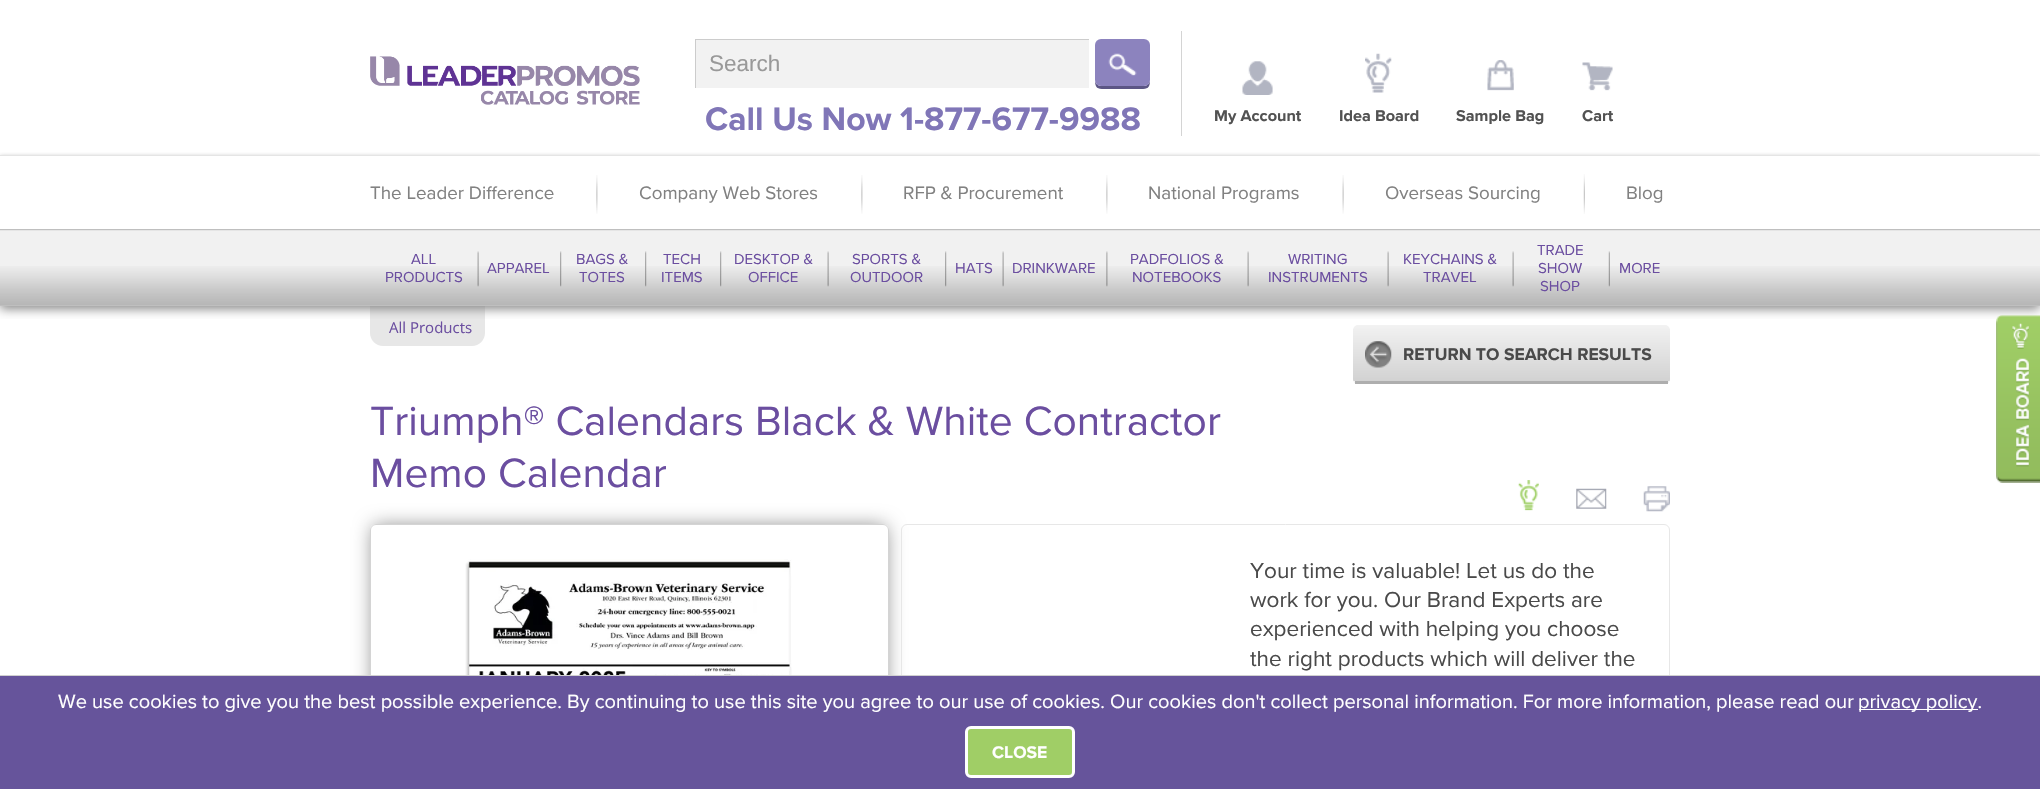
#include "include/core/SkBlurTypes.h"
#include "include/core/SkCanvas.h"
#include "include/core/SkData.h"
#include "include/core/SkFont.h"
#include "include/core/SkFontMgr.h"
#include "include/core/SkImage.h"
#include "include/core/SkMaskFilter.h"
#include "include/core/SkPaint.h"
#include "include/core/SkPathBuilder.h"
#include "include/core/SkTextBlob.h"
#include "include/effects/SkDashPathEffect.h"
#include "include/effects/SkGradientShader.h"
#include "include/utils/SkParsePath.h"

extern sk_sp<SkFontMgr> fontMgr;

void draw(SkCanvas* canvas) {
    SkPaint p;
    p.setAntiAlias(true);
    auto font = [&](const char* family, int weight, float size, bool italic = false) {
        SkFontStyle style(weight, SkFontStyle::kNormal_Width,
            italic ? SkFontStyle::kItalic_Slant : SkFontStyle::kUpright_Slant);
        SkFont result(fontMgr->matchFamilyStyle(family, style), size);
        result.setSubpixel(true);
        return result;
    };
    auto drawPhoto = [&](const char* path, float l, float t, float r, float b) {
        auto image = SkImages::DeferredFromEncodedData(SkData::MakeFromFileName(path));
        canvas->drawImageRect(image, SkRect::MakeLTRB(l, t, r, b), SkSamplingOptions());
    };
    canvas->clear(0xFFFFFFFF);
    p.setColor(0xFFE7E7E7);
    canvas->drawPath(SkPathBuilder().moveTo(370, 306).lineTo(485, 306).lineTo(485, 333).cubicTo(485, 340, 479, 346, 472, 346).lineTo(383, 346).cubicTo(376, 346, 370, 340, 370, 333).close().detach(), p);
    canvas->save();
    canvas->clipRect(SkRect::MakeLTRB(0, 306, 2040, 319));
    p.setColor(0xFF888888);
    p.setMaskFilter(SkMaskFilter::MakeBlur(kNormal_SkBlurStyle, 5));
    canvas->drawRect(SkRect::MakeLTRB(0, 3, 2040, 309), p);
    p.setMaskFilter(nullptr);
    canvas->restore();
    drawPhoto("media/1.png", 370, 56, 640, 105);
    {
        const struct { float l, t, r, b; SkColor color; } items[] = {
            {1181, 31, 1182, 136, 0xFFD4D4D4},
            {696, 40, 1089, 88, 0xFFF2F2F2},
            {695, 39, 1089, 40, 0xFFCCCCCC},
            {695, 39, 696, 88, 0xFFCCCCCC},
        };
        for (auto [l, t, r, b, color] : items) {
            p.setColor(color);
            canvas->drawRect(SkRect::MakeLTRB(l, t, r, b), p);
        }
    }
    auto font1 = font("Liberation Sans", 400, 22.5f);
    p.setColor(0xFF999999);
    canvas->drawString("Search", 709, 71, font1, p);
    p.setColor(0xFF5C5685);
    canvas->drawPath(SkPathBuilder().moveTo(1095, 80).cubicTo(1095, 90, 1099, 89, 1108, 89).lineTo(1137, 89).cubicTo(1146, 89, 1150, 90, 1150, 80).cubicTo(1150, 83, 1147, 86, 1144, 86).lineTo(1101, 86).cubicTo(1098, 86, 1095, 83, 1095, 80).close().detach(), p);
    p.setColor(0xFF8C83BE);
    canvas->drawRoundRect(SkRect::MakeLTRB(1095, 39, 1150, 86), 6, 6, p);
    drawPhoto("media/2.png", 1108, 53, 1137, 76);
    auto font2 = font("Proxima Nova", 700, 33.75f);
    p.setColor(0xFF8076B7);
    canvas->drawString("Call Us Now 1-877-677-9988", 705, 130, font2, p);
    drawPhoto("media/3.png", 1242, 61, 1273, 95);
    auto font3 = font("Proxima Nova", 700, 16.25f);
    p.setColor(0xFF525252);
    canvas->drawString("My Account", 1214, 121, font3, p);
    drawPhoto("media/4.png", 1365, 53, 1392, 93);
    canvas->drawString("Idea Board", 1339, 121, font3, p);
    drawPhoto("media/5.png", 1487, 60, 1514, 91);
    canvas->drawString("Sample Bag", 1456, 121, font3, p);
    drawPhoto("media/6.png", 1582, 62, 1613, 91);
    canvas->drawString("Cart", 1582, 121, font3, p);
    canvas->save();
    canvas->clipRect(SkRect::MakeLTRB(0, 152, 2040, 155));
    p.setColor(0xFFBFBFBF);
    p.setMaskFilter(SkMaskFilter::MakeBlur(kNormal_SkBlurStyle, 2));
    canvas->drawRect(SkRect::MakeLTRB(0, 156, 2040, 231), p);
    p.setMaskFilter(nullptr);
    canvas->restore();
    p.setColor(0xFFE5E5E5);
    canvas->drawRect(SkRect::MakeLTRB(0, 155, 2040, 156), p);
    p.setColor(0xFFBFBFBF);
    canvas->drawRect(SkRect::MakeLTRB(0, 229, 2040, 230), p);
    auto font4 = font("Proxima Nova", 400, 18.75f);
    p.setColor(0xFF818181);
    canvas->drawString("The Leader Difference", 370, 199, font4, p);
    drawPhoto("media/7.png", 596, 175, 598, 214);
    canvas->drawString("Company Web Stores", 639, 199, font4, p);
    drawPhoto("media/7.png", 861, 175, 863, 214);
    canvas->drawString("RFP & Procurement", 903, 199, font4, p);
    drawPhoto("media/7.png", 1106, 175, 1108, 214);
    canvas->drawString("National Programs", 1148, 199, font4, p);
    drawPhoto("media/8.png", 1342, 175, 1344, 214);
    canvas->drawString("Overseas Sourcing", 1385, 199, font4, p);
    drawPhoto("media/9.png", 1583, 174, 1585, 214);
    canvas->drawString("Blog", 1626, 199, font4, p);
    p.setColor(0xFFF1F1F1);
    canvas->drawRect(SkRect::MakeLTRB(0, 231, 2040, 266), p);
    drawPhoto("media/10.png", 0, 266, 2040, 305);
    p.setColor(0xFFE5E5E5);
    canvas->drawRect(SkRect::MakeLTRB(0, 230, 2040, 231), p);
    p.setColor(0xFFBFBFBF);
    canvas->drawRect(SkRect::MakeLTRB(0, 305, 2040, 306), p);
    auto font5 = font("Proxima Nova", 400, 15);
    p.setColor(0xFF6B4EA0);
    canvas->drawString("ALL", 411, 264, font5, p);
    canvas->drawString("PRODUCTS", 385, 282, font5, p);
    drawPhoto("media/11.png", 477, 251, 479, 287);
    canvas->drawString("APPAREL", 487, 273, font5, p);
    drawPhoto("media/12.png", 560, 251, 562, 287);
    canvas->drawString("BAGS &", 576, 264, font5, p);
    canvas->drawString("TOTES", 579, 282, font5, p);
    drawPhoto("media/12.png", 645, 251, 647, 287);
    canvas->drawString("TECH", 663, 264, font5, p);
    canvas->drawString("ITEMS", 661, 282, font5, p);
    drawPhoto("media/12.png", 720, 251, 722, 287);
    canvas->drawString("DESKTOP &", 734, 264, font5, p);
    canvas->drawString("OFFICE", 748, 282, font5, p);
    drawPhoto("media/11.png", 827, 251, 829, 287);
    canvas->drawString("SPORTS &", 852, 264, font5, p);
    canvas->drawString("OUTDOOR", 850, 282, font5, p);
    drawPhoto("media/12.png", 945, 251, 947, 287);
    canvas->drawString("HATS", 955, 273, font5, p);
    drawPhoto("media/11.png", 1002, 251, 1004, 287);
    canvas->drawString("DRINKWARE", 1012, 273, font5, p);
    drawPhoto("media/13.png", 1106, 251, 1108, 287);
    canvas->drawString("PADFOLIOS &", 1130, 264, font5, p);
    canvas->drawString("NOTEBOOKS", 1132, 282, font5, p);
    drawPhoto("media/11.png", 1247, 251, 1249, 287);
    canvas->drawString("WRITING", 1288, 264, font5, p);
    canvas->drawString("INSTRUMENTS", 1268, 282, font5, p);
    drawPhoto("media/11.png", 1387, 251, 1389, 287);
    canvas->drawString("KEYCHAINS &", 1403, 264, font5, p);
    canvas->drawString("TRAVEL", 1423, 282, font5, p);
    drawPhoto("media/11.png", 1512, 251, 1514, 287);
    {
        const struct { const char* s; float x, y; } items[] = {
            {"TRADE", 1537, 255},
            {"SHOW", 1538, 273},
            {"SHOP", 1540, 291},
        };
        for (auto [s, x, y] : items) {
            canvas->drawString(s, x, y, font5, p);
        }
    }
    drawPhoto("media/14.png", 1608, 251, 1610, 287);
    canvas->drawString("MORE", 1619, 273, font5, p);
    auto font6 = font("Open Sans", 400, 15);
    canvas->drawString("All Products", 389, 333, font6, p);
    canvas->save();
    canvas->clipPath(SkPathBuilder().moveTo(1358, 325).lineTo(1665, 325).cubicTo(1668, 325, 1670, 327, 1670, 330).lineTo(1670, 379).cubicTo(1670, 382, 1668, 384, 1665, 384).lineTo(1358, 384).cubicTo(1355, 384, 1353, 382, 1353, 379).lineTo(1353, 330).cubicTo(1353, 327, 1355, 325, 1358, 325).close().detach(), true);
    {
        const SkColor colors[] = {0xFFF2F2F2, 0xFFD2D2D2};
        const float stops[] = {0, 1};
        const SkPoint ends[] = {{1511, 325}, {1511, 381}};
        p.setShader(SkGradientShader::MakeLinear(ends, colors, stops, 2, SkTileMode::kClamp));
        p.setAlpha(255);
    }
    canvas->drawPath(SkPathBuilder().moveTo(1358, 325).lineTo(1665, 325).cubicTo(1668, 325, 1670, 327, 1670, 330).lineTo(1670, 381).lineTo(1353, 381).lineTo(1353, 330).cubicTo(1353, 327, 1355, 325, 1358, 325).close().detach(), p);
    {
        const SkColor colors[] = {0xFFF2F2F2, 0xFFD2D2D2};
        const float stops[] = {0, 1};
        const SkPoint ends[] = {{1511, 381}, {1511, 438}};
        p.setShader(SkGradientShader::MakeLinear(ends, colors, stops, 2, SkTileMode::kClamp));
        p.setAlpha(255);
    }
    canvas->drawRect(SkRect::MakeLTRB(1353, 381, 1670, 383), p);
    canvas->restore();
    p.setShader(nullptr);
    p.setColor(0xFFAEAEAE);
    canvas->drawRect(SkRect::MakeLTRB(1355, 381, 1668, 384), p);
    drawPhoto("media/15.png", 1365, 341, 1392, 368);
    auto font7 = font("Proxima Nova", 700, 17.5f);
    p.setColor(0xFF4A4A4A);
    canvas->drawString("RETURN TO SEARCH RESULTS", 1403, 360, font7, p);
    auto font8 = font("Proxima Nova", 400, 42.5f);
    p.setColor(0xFF6B4EA0);
    canvas->drawString("Triumph® Calendars Black & White Contractor", 370, 435, font8, p);
    canvas->drawString("Memo Calendar", 370, 487, font8, p);
    canvas->save();
    canvas->clipPath(SkPathBuilder(SkPathFillType::kEvenOdd).moveTo(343, 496).lineTo(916, 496).lineTo(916, 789).lineTo(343, 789).close().moveTo(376, 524).lineTo(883, 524).cubicTo(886.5f, 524, 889, 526.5f, 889, 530).lineTo(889, 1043).cubicTo(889, 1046.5f, 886.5f, 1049, 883, 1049).lineTo(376, 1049).cubicTo(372.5f, 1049, 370, 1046.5f, 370, 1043).lineTo(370, 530).cubicTo(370, 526.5f, 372.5f, 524, 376, 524).close().detach(), true);
    p.setColor(0xFF888888);
    p.setMaskFilter(SkMaskFilter::MakeBlur(kNormal_SkBlurStyle, 9.5f));
    canvas->drawRoundRect(SkRect::MakeLTRB(373, 526, 886, 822), 4, 4, p);
    p.setMaskFilter(nullptr);
    canvas->restore();
    p.setStyle(SkPaint::kStroke_Style);
    p.setStrokeWidth(1);
    p.setColor(0xFFD4D4D4);
    canvas->drawRoundRect(SkRect::MakeLTRB(370.5f, 524.5f, 888.5f, 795.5f), 5.5f, 5.5f, p);
    drawPhoto("media/16.png", 465, 559, 792, 675);
    drawPhoto("media/17.png", 1518, 480, 1539, 511);
    drawPhoto("media/18.png", 1576, 488, 1607, 509);
    drawPhoto("media/19.png", 1643, 486, 1670, 512);
    p.setColor(0xFFE7E7E7);
    canvas->drawRoundRect(SkRect::MakeLTRB(901.5f, 524.5f, 1669.5f, 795.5f), 5.5f, 5.5f, p);
    auto font9 = font("Proxima Nova", 400, 22.5f);
    p.setStyle(SkPaint::kFill_Style);
    p.setColor(0xFF4A4A4A);
    {
        const struct { const char* s; float x, y; } items[] = {
            {"Your time is valuable! Let us do the", 1250, 578},
            {"work for you. Our Brand Experts are", 1250, 607},
            {"experienced with helping you choose", 1250, 636},
            {"the right products which will deliver the", 1250, 666},
        };
        for (auto [s, x, y] : items) {
            canvas->drawString(s, x, y, font9, p);
        }
    }
    drawPhoto("media/20.png", 1996, 315, 2040, 483);
    p.setColor(0xFF66549B);
    canvas->drawRect(SkRect::MakeLTRB(0, 676, 2040, 789), p);
    p.setColor(0xFFD0D0D0);
    canvas->drawRect(SkRect::MakeLTRB(0, 675, 2040, 676), p);
    auto font10 = font("Proxima Nova", 400, 20);
    p.setColor(0xFFFFFFFF);
    canvas->drawString("We use cookies to give you the best possible experience. By continuing to use this site you agree to our use of cookies. Our cookies don't collect personal information. For more information, please read our", 58, 708, font10, p);
    canvas->drawRect(SkRect::MakeLTRB(1859, 709, 1978, 710), p);
    canvas->drawString("privacy policy.", 1858, 708, font10, p);
    p.setColor(0xFFA0CE66);
    canvas->drawRoundRect(SkRect::MakeLTRB(966.5f, 727.5f, 1073.5f, 776.5f), 4.5f, 4.5f, p);
    p.setStyle(SkPaint::kStroke_Style);
    p.setStrokeWidth(3);
    p.setColor(0xFFFFFFFF);
    canvas->drawRoundRect(SkRect::MakeLTRB(966.5f, 727.5f, 1073.5f, 776.5f), 4.5f, 4.5f, p);
    p.setStyle(SkPaint::kFill_Style);
    canvas->drawString("CLOSE", 992, 758, font7, p);
}
